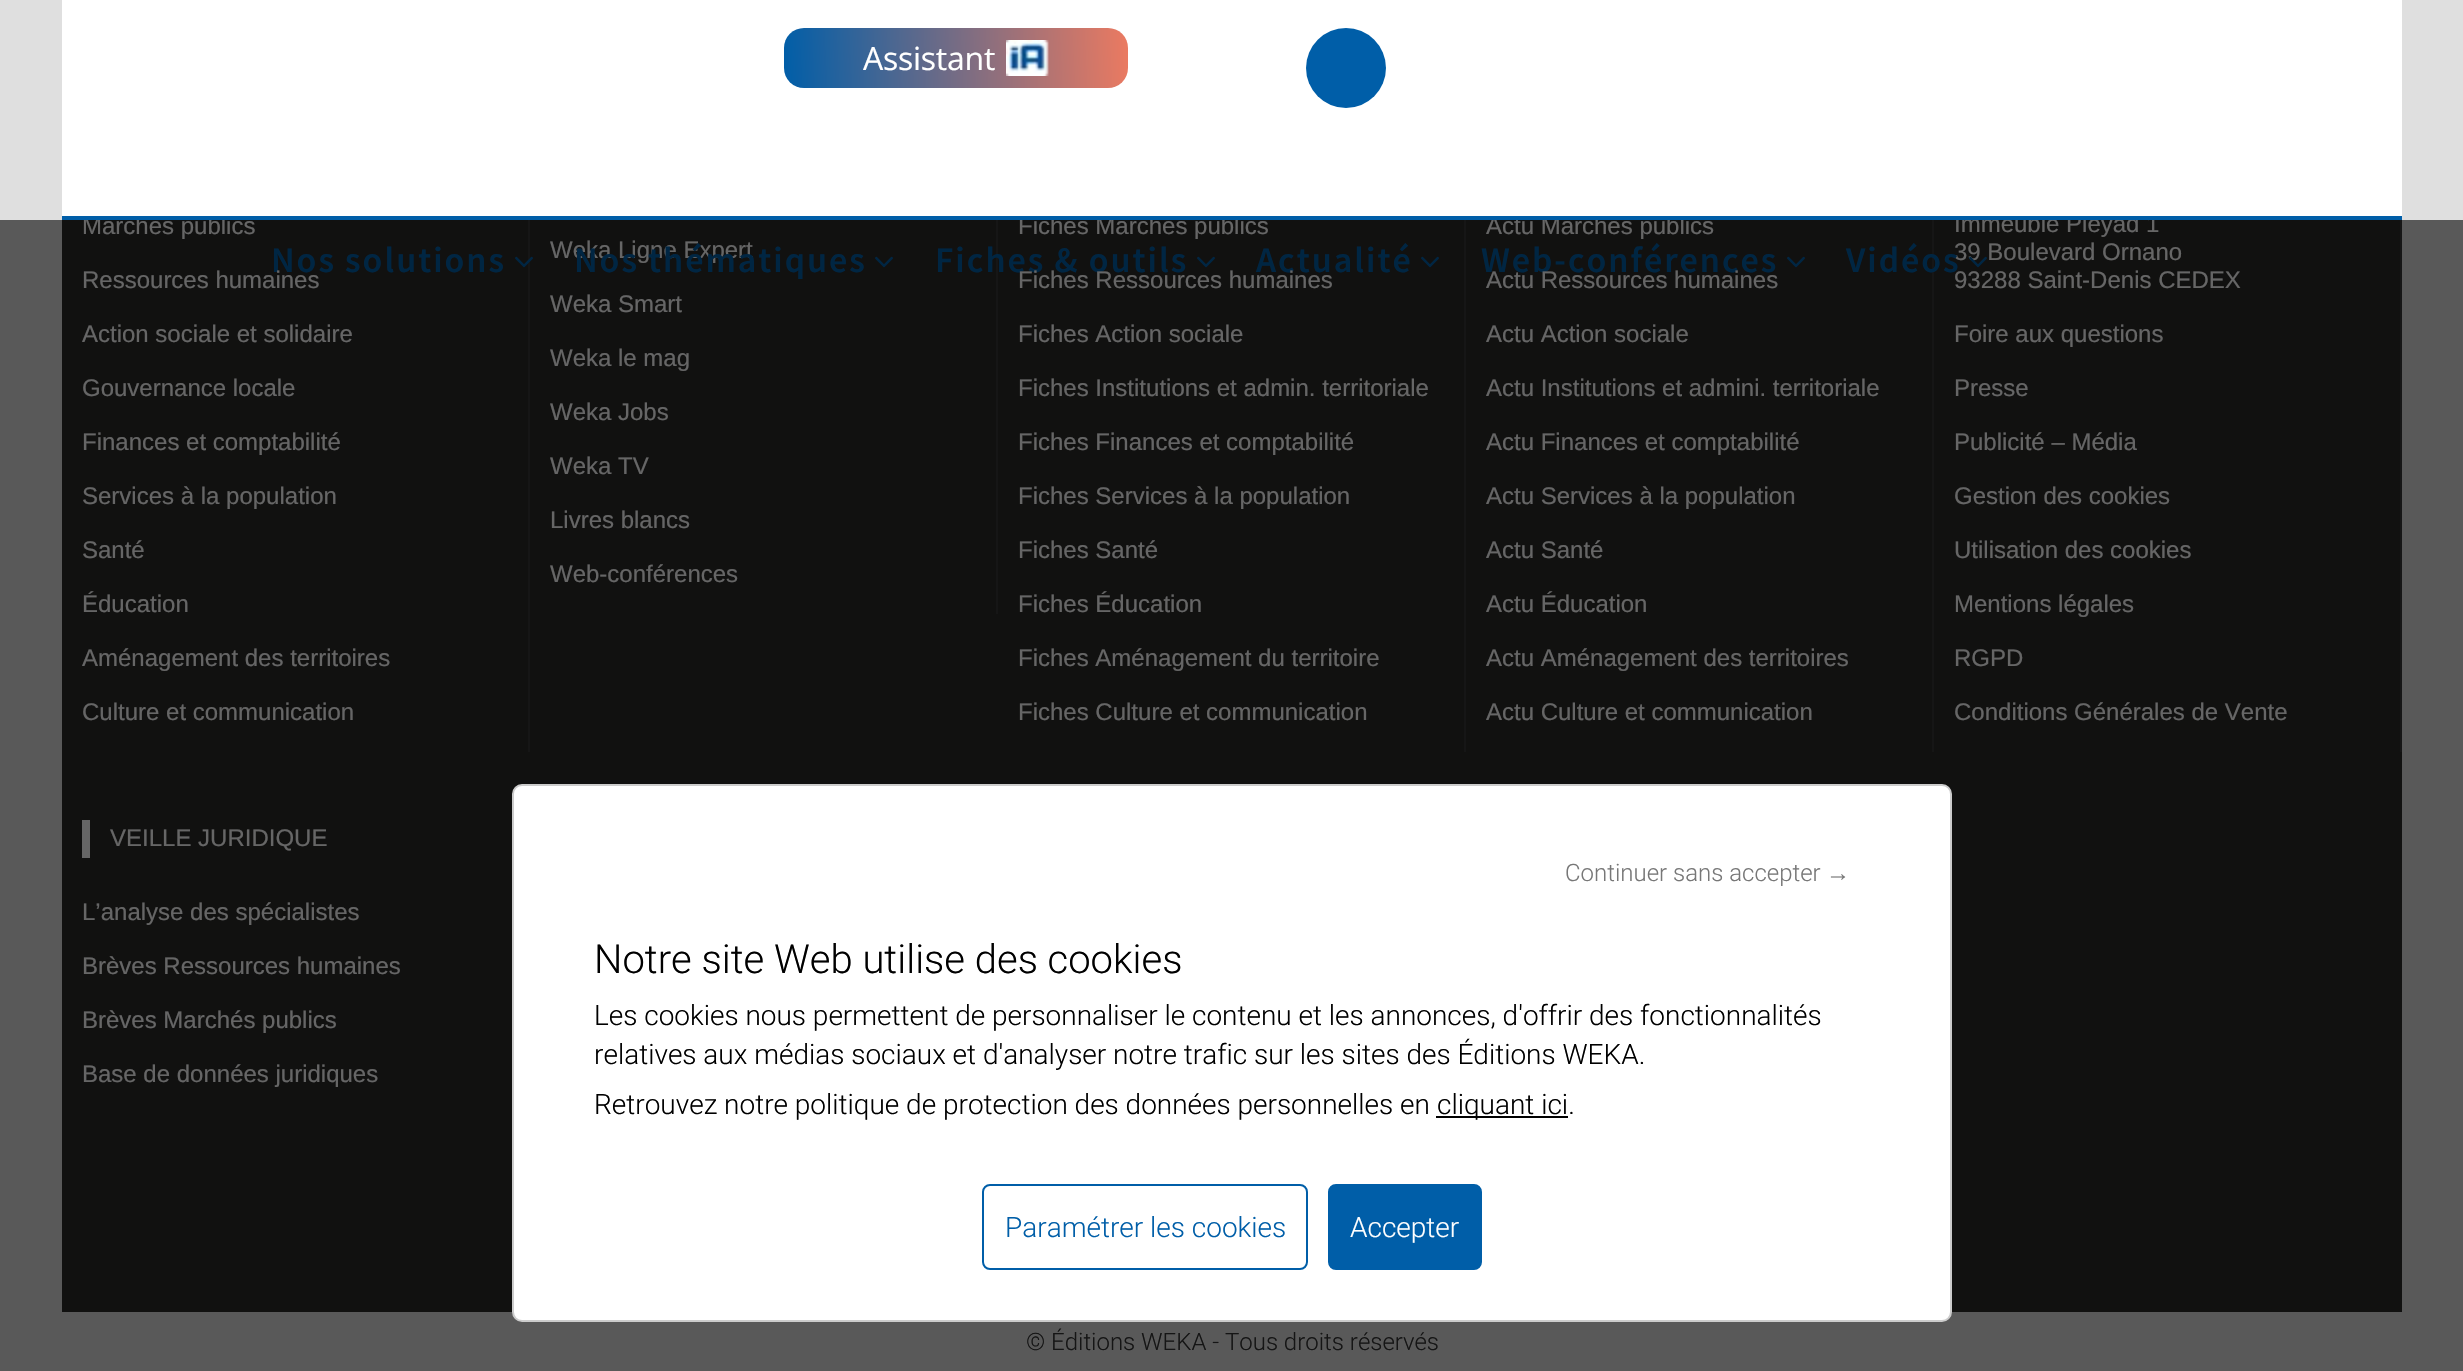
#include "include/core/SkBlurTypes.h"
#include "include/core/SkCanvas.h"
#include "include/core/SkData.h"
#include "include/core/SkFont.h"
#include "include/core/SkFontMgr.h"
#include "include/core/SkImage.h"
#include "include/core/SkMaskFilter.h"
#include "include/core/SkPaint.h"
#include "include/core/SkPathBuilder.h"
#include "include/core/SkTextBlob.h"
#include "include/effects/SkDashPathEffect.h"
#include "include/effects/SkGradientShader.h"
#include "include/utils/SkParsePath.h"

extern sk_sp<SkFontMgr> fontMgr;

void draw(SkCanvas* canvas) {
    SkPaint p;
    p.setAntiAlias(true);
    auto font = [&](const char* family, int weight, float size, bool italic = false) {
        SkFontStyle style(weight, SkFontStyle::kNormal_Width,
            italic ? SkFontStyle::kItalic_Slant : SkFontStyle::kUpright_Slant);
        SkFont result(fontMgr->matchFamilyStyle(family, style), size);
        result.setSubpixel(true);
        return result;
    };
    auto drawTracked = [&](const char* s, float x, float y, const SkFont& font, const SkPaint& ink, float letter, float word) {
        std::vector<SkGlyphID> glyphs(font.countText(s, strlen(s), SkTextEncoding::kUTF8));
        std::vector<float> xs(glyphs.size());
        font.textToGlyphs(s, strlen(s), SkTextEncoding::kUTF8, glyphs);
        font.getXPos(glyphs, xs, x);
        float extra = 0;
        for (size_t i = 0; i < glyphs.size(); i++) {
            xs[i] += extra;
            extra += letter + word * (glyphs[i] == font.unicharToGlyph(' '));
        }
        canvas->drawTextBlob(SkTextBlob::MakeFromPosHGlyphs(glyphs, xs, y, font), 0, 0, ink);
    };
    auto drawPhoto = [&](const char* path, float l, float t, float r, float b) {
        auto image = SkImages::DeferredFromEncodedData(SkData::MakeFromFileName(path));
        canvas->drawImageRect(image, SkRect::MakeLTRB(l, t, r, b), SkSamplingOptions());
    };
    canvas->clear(0xFFDFDFDF);
    p.setColor(0xFFFFFFFF);
    canvas->drawRect(SkRect::MakeLTRB(62, 0, 2402, 216), p);
    p.setColor(0xFF292928);
    canvas->drawRect(SkRect::MakeLTRB(62, 220, 2402, 1312), p);
    auto font1 = font("Liberation Sans", 400, 24);
    p.setColor(0xFFFFFFFF);
    {
        const struct { const char* s; float x, y; } items[] = {
            {"Marchés publics", 82, 234},
            {"Fiches Marchés publics", 1018, 234},
            {"Actu Marchés publics", 1486, 234},
            {"Immeuble Pleyad 1", 1954, 232},
        };
        for (auto [s, x, y] : items) {
            canvas->drawString(s, x, y, font1, p);
        }
    }
    p.setColor(0xFF005EA8);
    canvas->drawRect(SkRect::MakeLTRB(62, 216, 2402, 220), p);
    {
        const SkColor colors[] = {0xFFEB7A61, 0xFF005EA8};
        const float stops[] = {0, 1};
        const SkPoint ends[] = {{1129, 49}, {783, 67}};
        p.setShader(SkGradientShader::MakeLinear(ends, colors, stops, 2, SkTileMode::kClamp));
        p.setAlpha(255);
    }
    canvas->drawRoundRect(SkRect::MakeLTRB(784, 28, 1128, 88), 20, 20, p);
    auto font2 = font("Open Sans", 400, 32);
    p.setShader(nullptr);
    p.setColor(0xFFFFFFFF);
    drawTracked("Assistant", 863, 70, font2, p, -0.25f, 0);
    drawPhoto("media/1.png", 1006, 40, 1049, 76);
    p.setColor(0xFF005EA8);
    canvas->drawCircle(1346, 68, 40, p);
    auto font3 = font("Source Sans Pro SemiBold", 600, 36);
    drawTracked("Nos solutions", 271, 272, font3, p, 2, 0);
    p.setColor(0xFF353535);
    canvas->drawRect(SkRect::MakeLTRB(528, 220, 530, 752), p);
    drawPhoto("media/2.png", 515, 256, 533, 268);
    p.setColor(0xFFFFFFFF);
    canvas->drawString("Weka Ligne Expert", 550, 258, font1, p);
    p.setColor(0xFF005EA8);
    drawTracked("Nos thématiques", 574, 272, font3, p, 2, 0);
    drawPhoto("media/3.png", 875, 256, 893, 268);
    p.setColor(0xFF353535);
    canvas->drawRect(SkRect::MakeLTRB(996, 220, 998, 614), p);
    p.setColor(0xFF005EA8);
    drawTracked("Fiches & outils", 935, 272, font3, p, 2, 0);
    drawPhoto("media/3.png", 1197, 256, 1215, 268);
    drawTracked("Actualité", 1256, 272, font3, p, 2, 0);
    drawPhoto("media/3.png", 1421, 256, 1439, 268);
    drawTracked("Web-conférences", 1481, 272, font3, p, 2, 0);
    drawPhoto("media/3.png", 1787, 256, 1805, 268);
    p.setColor(0xFF353535);
    canvas->drawRect(SkRect::MakeLTRB(1932, 220, 1934, 752), p);
    p.setColor(0xFFFFFFFF);
    canvas->drawString("39 Boulevard Ornano", 1954, 260, font1, p);
    p.setColor(0xFF005EA8);
    drawTracked("Vidéos", 1846, 272, font3, p, 2, 0);
    drawPhoto("media/4.png", 1969, 256, 1987, 268);
    p.setColor(0xFFFFFFFF);
    {
        const struct { const char* s; float x, y; } items[] = {
            {"Ressources humaines", 82, 288},
            {"Action sociale et solidaire", 82, 342},
            {"Gouvernance locale", 82, 396},
            {"Finances et comptabilité", 82, 450},
            {"Services à la population", 82, 504},
            {"Santé", 82, 558},
            {"Éducation", 82, 612},
            {"Aménagement des territoires", 82, 666},
            {"Culture et communication", 82, 720},
            {"Weka Smart", 550, 312},
            {"Weka le mag", 550, 366},
            {"Weka Jobs", 550, 420},
            {"Weka TV", 550, 474},
            {"Livres blancs", 550, 528},
            {"Web-conférences", 550, 582},
        };
        for (auto [s, x, y] : items) {
            canvas->drawString(s, x, y, font1, p);
        }
    }
    p.setColor(0xFF353535);
    canvas->drawRect(SkRect::MakeLTRB(1464, 220, 1466, 752), p);
    p.setColor(0xFFFFFFFF);
    {
        const struct { const char* s; float x, y; } items[] = {
            {"Fiches Ressources humaines", 1018, 288},
            {"Fiches Action sociale", 1018, 342},
            {"Fiches Institutions et admin. territoriale", 1018, 396},
            {"Fiches Finances et comptabilité", 1018, 450},
            {"Fiches Services à la population", 1018, 504},
            {"Fiches Santé", 1018, 558},
            {"Fiches Éducation", 1018, 612},
            {"Fiches Aménagement du territoire", 1018, 666},
            {"Fiches Culture et communication", 1018, 720},
            {"Actu Ressources humaines", 1486, 288},
            {"Actu Action sociale", 1486, 342},
            {"Actu Institutions et admini. territoriale", 1486, 396},
            {"Actu Finances et comptabilité", 1486, 450},
            {"Actu Services à la population", 1486, 504},
            {"Actu Santé", 1486, 558},
            {"Actu Éducation", 1486, 612},
            {"Actu Aménagement des territoires", 1486, 666},
            {"Actu Culture et communication", 1486, 720},
        };
        for (auto [s, x, y] : items) {
            canvas->drawString(s, x, y, font1, p);
        }
    }
    p.setColor(0xFF353535);
    canvas->drawRect(SkRect::MakeLTRB(2400, 220, 2402, 752), p);
    p.setColor(0xFFFFFFFF);
    {
        const struct { const char* s; float x, y; } items[] = {
            {"93288 Saint-Denis CEDEX", 1954, 288},
            {"Foire aux questions", 1954, 342},
            {"Presse", 1954, 396},
            {"Publicité – Média", 1954, 450},
            {"Gestion des cookies", 1954, 504},
            {"Utilisation des cookies", 1954, 558},
            {"Mentions légales", 1954, 612},
            {"RGPD", 1954, 666},
            {"Conditions Générales de Vente", 1954, 720},
        };
        for (auto [s, x, y] : items) {
            canvas->drawString(s, x, y, font1, p);
        }
    }
    canvas->drawRect(SkRect::MakeLTRB(82, 820, 90, 858), p);
    {
        const struct { const char* s; float x, y; } items[] = {
            {"VEILLE JURIDIQUE", 110, 846},
            {"L’analyse des spécialistes", 82, 920},
            {"Brèves Ressources humaines", 82, 974},
            {"Brèves Marchés publics", 82, 1028},
            {"Base de données juridiques", 82, 1082},
        };
        for (auto [s, x, y] : items) {
            canvas->drawString(s, x, y, font1, p);
        }
    }
    auto font4 = font("Roboto", 300, 24);
    p.setColor(0xFF333333);
    canvas->drawString("© Éditions WEKA - Tous droits réservés", 1026, 1350, font4, p);
    p.setColor(0x99000000);
    canvas->drawRect(SkRect::MakeLTRB(0, 220, 2463, 1371), p);
    p.setColor(0xFFFFFFFF);
    canvas->drawRoundRect(SkRect::MakeLTRB(513, 785, 1951, 1321), 9, 9, p);
    p.setStyle(SkPaint::kStroke_Style);
    p.setStrokeWidth(2);
    p.setColor(0xFFCCCCCC);
    canvas->drawRoundRect(SkRect::MakeLTRB(513, 785, 1951, 1321), 9, 9, p);
    p.setStyle(SkPaint::kFill_Style);
    p.setColor(0xFF777777);
    canvas->drawString("Continuer sans accepter", 1565, 881, font4, p);
    canvas->drawString("→", 1826, 881, font1, p);
    auto font5 = font("Roboto", 300, 40);
    p.setColor(0xFF000000);
    canvas->drawString("Notre site Web utilise des cookies", 594, 973, font5, p);
    auto font6 = font("Roboto", 300, 28);
    {
        const struct { const char* s; float x, y; } items[] = {
            {"Les cookies nous permettent de personnaliser le contenu et les annonces, d'offrir des fonctionnalités", 594, 1025},
            {"relatives aux médias sociaux et d'analyser notre trafic sur les sites des Éditions WEKA.", 594, 1064},
            {"Retrouvez notre politique de protection des données personnelles en", 594, 1114},
        };
        for (auto [s, x, y] : items) {
            canvas->drawString(s, x, y, font6, p);
        }
    }
    canvas->drawRect(SkRect::MakeLTRB(1436, 1116, 1568, 1118), p);
    canvas->drawString("cliquant ici.", 1437, 1114, font6, p);
    p.setStyle(SkPaint::kStroke_Style);
    p.setColor(0xFF005EA8);
    canvas->drawRoundRect(SkRect::MakeLTRB(983, 1185, 1307, 1269), 7, 7, p);
    p.setStyle(SkPaint::kFill_Style);
    canvas->drawString("Paramétrer les cookies", 1005, 1237, font6, p);
    canvas->drawRoundRect(SkRect::MakeLTRB(1329, 1185, 1481, 1269), 7, 7, p);
    p.setStyle(SkPaint::kStroke_Style);
    canvas->drawRoundRect(SkRect::MakeLTRB(1329, 1185, 1481, 1269), 7, 7, p);
    p.setStyle(SkPaint::kFill_Style);
    p.setColor(0xFFFFFFFF);
    canvas->drawString("Accepter", 1350, 1237, font6, p);
}
